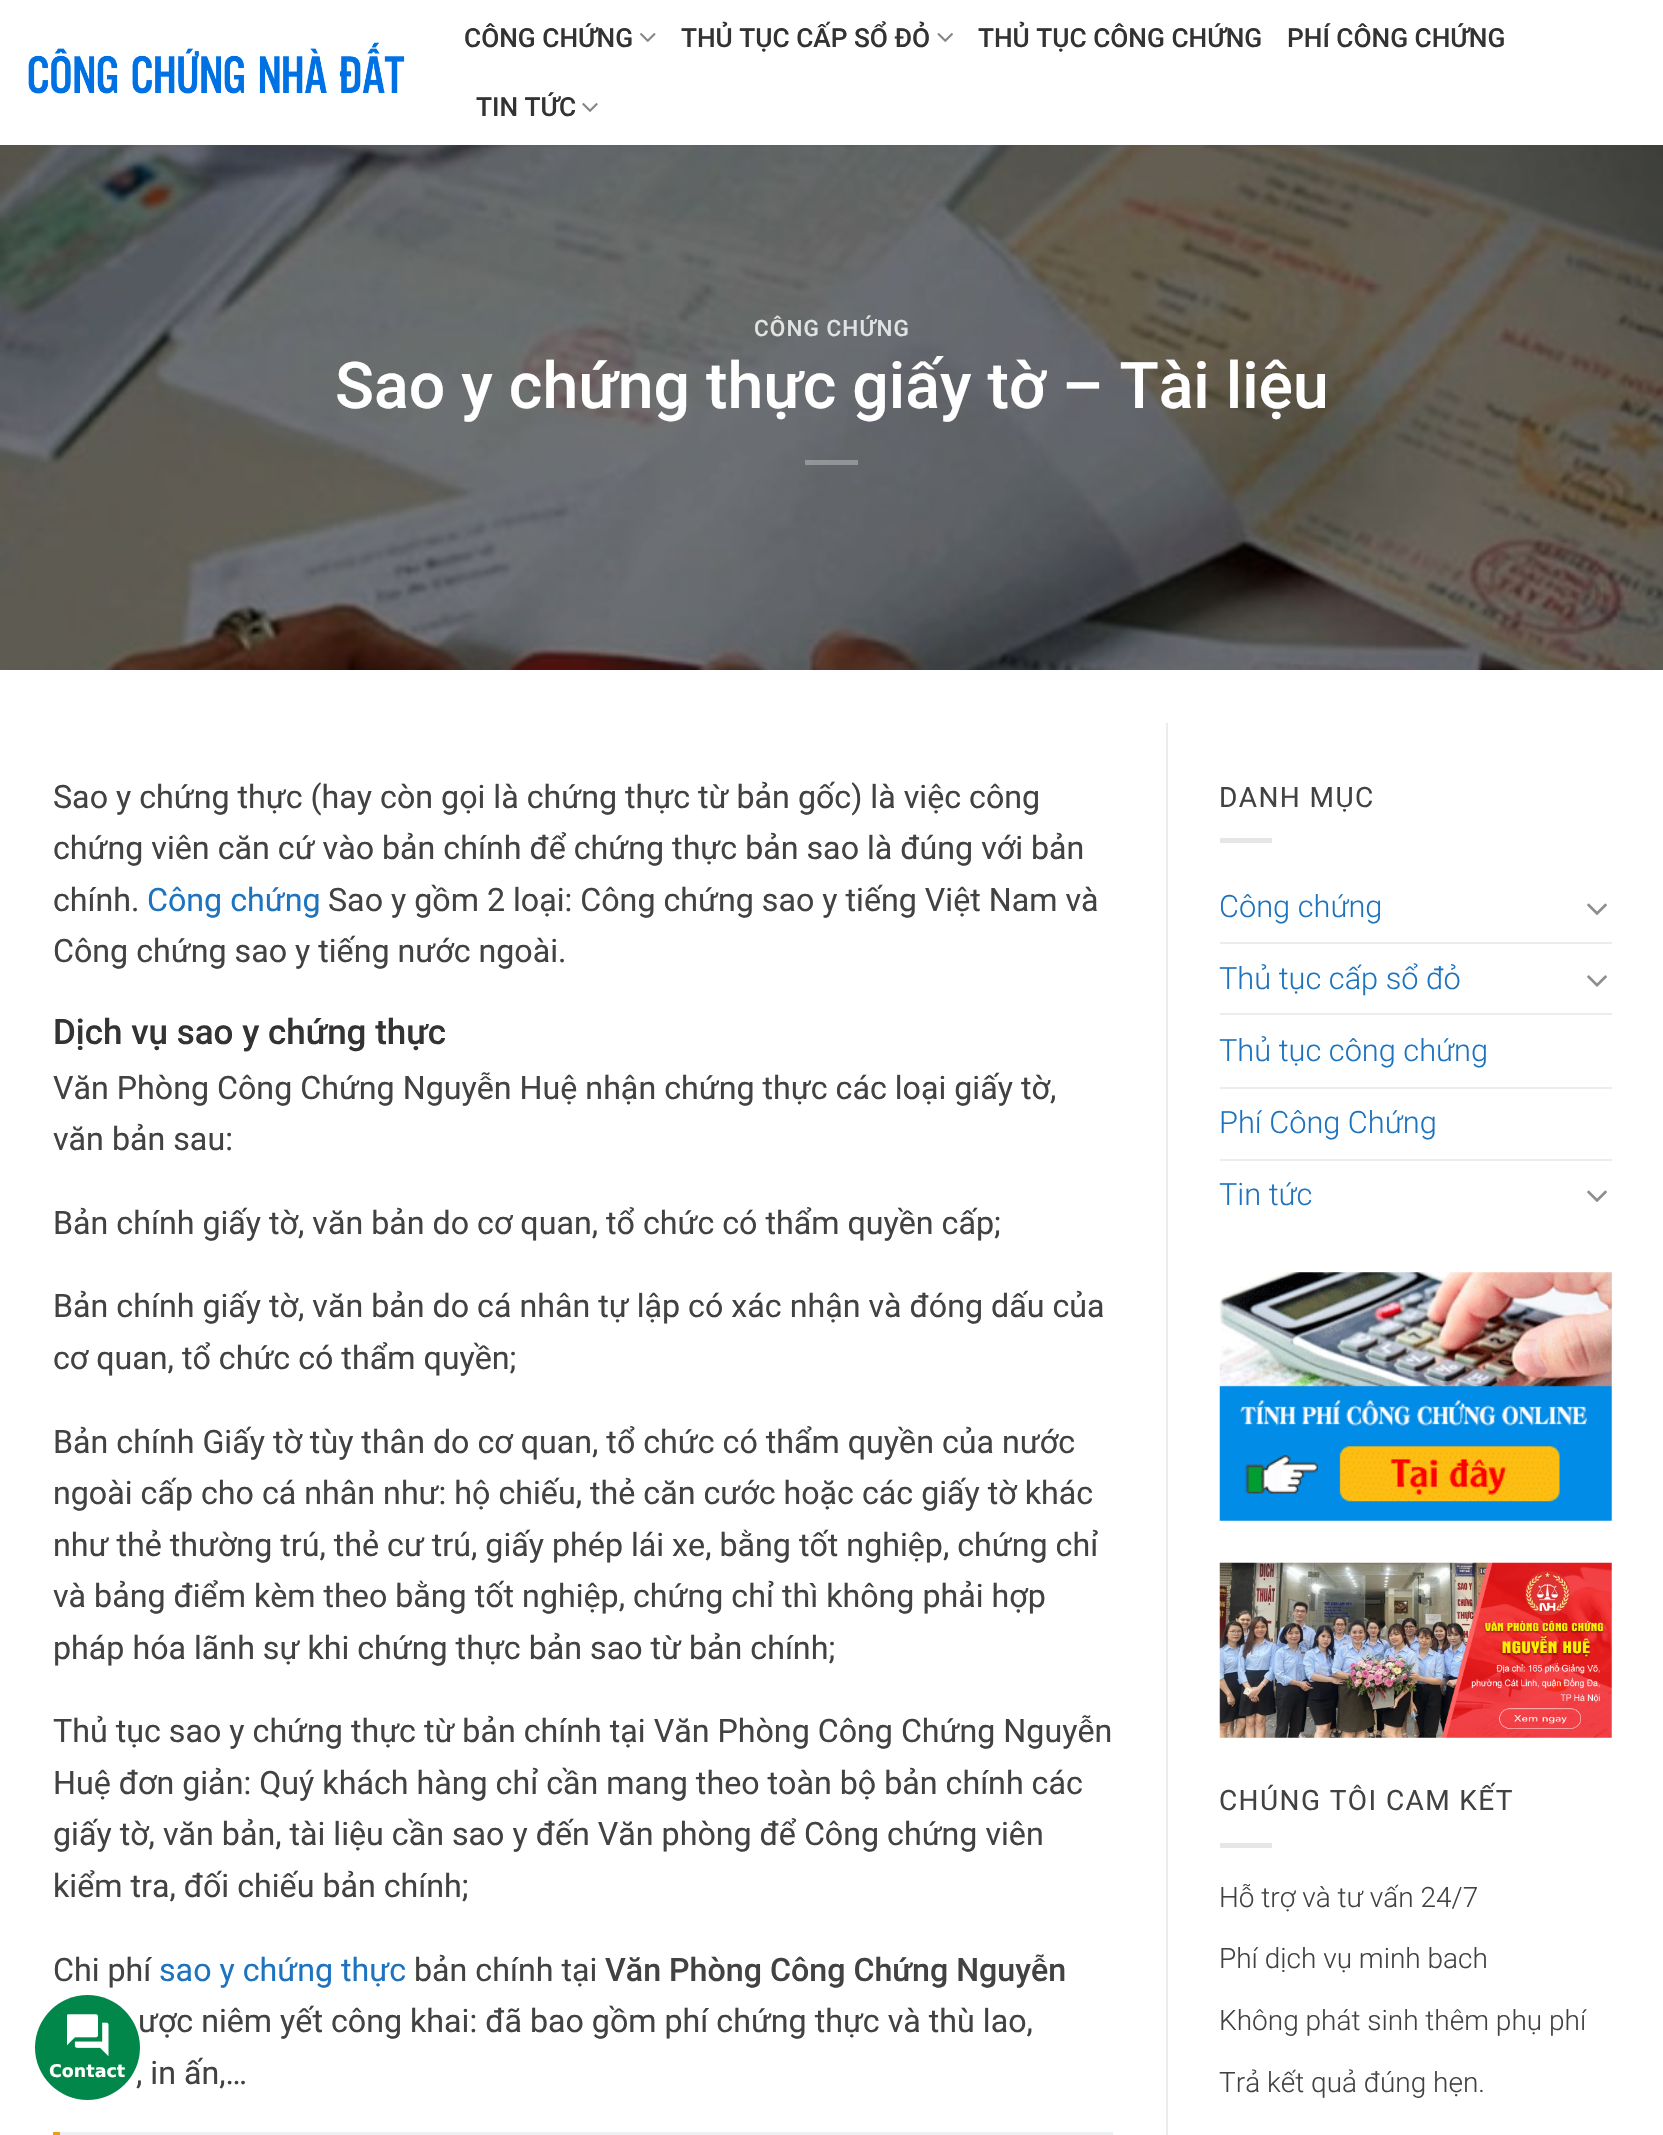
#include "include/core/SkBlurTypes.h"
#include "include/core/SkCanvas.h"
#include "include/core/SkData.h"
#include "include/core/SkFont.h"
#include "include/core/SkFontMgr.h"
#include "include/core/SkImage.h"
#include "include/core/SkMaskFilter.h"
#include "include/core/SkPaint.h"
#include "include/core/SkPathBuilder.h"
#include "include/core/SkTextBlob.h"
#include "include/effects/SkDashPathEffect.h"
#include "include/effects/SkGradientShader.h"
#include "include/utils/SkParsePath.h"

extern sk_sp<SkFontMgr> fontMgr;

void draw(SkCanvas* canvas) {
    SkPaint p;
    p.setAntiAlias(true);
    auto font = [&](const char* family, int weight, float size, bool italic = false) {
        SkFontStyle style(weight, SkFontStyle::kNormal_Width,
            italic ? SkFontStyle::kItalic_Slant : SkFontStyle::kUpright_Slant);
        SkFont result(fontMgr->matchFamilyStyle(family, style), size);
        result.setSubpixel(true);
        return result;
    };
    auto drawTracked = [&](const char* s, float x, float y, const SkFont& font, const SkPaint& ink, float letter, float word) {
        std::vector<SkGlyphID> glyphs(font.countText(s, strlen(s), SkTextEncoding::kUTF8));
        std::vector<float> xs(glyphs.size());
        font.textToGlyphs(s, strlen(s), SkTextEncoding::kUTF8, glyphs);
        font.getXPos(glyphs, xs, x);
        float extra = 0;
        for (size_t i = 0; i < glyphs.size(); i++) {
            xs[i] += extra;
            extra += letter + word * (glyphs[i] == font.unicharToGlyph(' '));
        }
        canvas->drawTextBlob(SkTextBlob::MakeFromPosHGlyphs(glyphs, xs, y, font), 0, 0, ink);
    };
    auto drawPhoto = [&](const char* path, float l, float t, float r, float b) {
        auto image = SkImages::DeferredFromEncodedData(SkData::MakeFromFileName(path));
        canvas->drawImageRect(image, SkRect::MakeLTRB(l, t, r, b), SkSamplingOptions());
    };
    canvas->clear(0xFFFFFFFF);
    drawPhoto("media/1.png", 28, 42, 405, 94);
    auto font1 = font("Roboto", 500, 26.25f);
    p.setColor(0xFF333333);
    canvas->drawString("CÔNG CHỨNG", 464, 47, font1, p);
    drawPhoto("media/2.png", 640, 33, 656, 42);
    canvas->drawString("THỦ TỤC CẤP SỔ ĐỎ", 681, 47, font1, p);
    drawPhoto("media/3.png", 937, 33, 953, 42);
    {
        const struct { const char* s; float x, y; } items[] = {
            {"THỦ TỤC CÔNG CHỨNG", 978, 47},
            {"PHÍ CÔNG CHỨNG", 1287, 47},
            {"TIN TỨC", 476, 116},
        };
        for (auto [s, x, y] : items) {
            canvas->drawString(s, x, y, font1, p);
        }
    }
    drawPhoto("media/4.png", 582, 103, 598, 112);
    drawPhoto("media/5.png", 0, 145, 1663, 670);
    p.setColor(0x1A424242);
    canvas->drawRect(SkRect::MakeLTRB(53, 145, 1327, 147), p);
    auto font2 = font("Roboto", 500, 22.5f);
    p.setColor(0xFFE1E2E2);
    drawTracked("CÔNG CHỨNG", 754, 336, font2, p, 1.1f, 0);
    auto font3 = font("Roboto", 500, 64.4f);
    p.setColor(0xFFFFFFFF);
    canvas->drawString("Sao y chứng thực giấy tờ – Tài liệu", 335, 408, font3, p);
    p.setColor(0x4DFFFFFF);
    canvas->drawRect(SkRect::MakeLTRB(805, 460, 858, 465), p);
    auto font4 = font("Roboto", 400, 32.2f);
    p.setColor(0xFF424242);
    {
        const struct { const char* s; float x, y; } items[] = {
            {"Sao y chứng thực (hay còn gọi là chứng thực từ bản gốc) là việc công", 53, 808},
            {"chứng viên căn cứ vào bản chính để chứng thực bản sao là đúng với bản", 53, 859},
            {"chính.", 53, 911},
        };
        for (auto [s, x, y] : items) {
            canvas->drawString(s, x, y, font4, p);
        }
    }
    p.setColor(0xFF1E73BE);
    canvas->drawString("Công chứng", 147, 911, font4, p);
    p.setColor(0xFF424242);
    canvas->drawString("Sao y gồm 2 loại: Công chứng sao y tiếng Việt Nam và", 328, 911, font4, p);
    canvas->drawString("Công chứng sao y tiếng nước ngoài.", 53, 962, font4, p);
    auto font5 = font("Roboto", 500, 35);
    p.setColor(0xFF333333);
    canvas->drawString("Dịch vụ sao y chứng thực", 53, 1044, font5, p);
    p.setColor(0xFF424242);
    {
        const struct { const char* s; float x, y; } items[] = {
            {"Văn Phòng Công Chứng Nguyễn Huệ nhận chứng thực các loại giấy tờ,", 53, 1099},
            {"văn bản sau:", 53, 1150},
            {"Bản chính giấy tờ, văn bản do cơ quan, tổ chức có thẩm quyền cấp;", 53, 1234},
            {"Bản chính giấy tờ, văn bản do cá nhân tự lập có xác nhận và đóng dấu của", 53, 1317},
            {"cơ quan, tổ chức có thẩm quyền;", 53, 1369},
            {"Bản chính Giấy tờ tùy thân do cơ quan, tổ chức có thẩm quyền của nước", 53, 1453},
            {"ngoài cấp cho cá nhân như: hộ chiếu, thẻ căn cước hoặc các giấy tờ khác", 53, 1504},
            {"như thẻ thường trú, thẻ cư trú, giấy phép lái xe, bằng tốt nghiệp, chứng chỉ", 53, 1556},
            {"và bảng điểm kèm theo bằng tốt nghiệp, chứng chỉ thì không phải hợp", 53, 1607},
            {"pháp hóa lãnh sự khi chứng thực bản sao từ bản chính;", 53, 1659},
            {"Thủ tục sao y chứng thực từ bản chính tại Văn Phòng Công Chứng Nguyễn", 53, 1742},
            {"Huệ đơn giản: Quý khách hàng chỉ cần mang theo toàn bộ bản chính các", 53, 1794},
            {"giấy tờ, văn bản, tài liệu cần sao y đến Văn phòng để Công chứng viên", 53, 1845},
            {"kiểm tra, đối chiếu bản chính;", 53, 1897},
            {"Chi phí", 53, 1981},
        };
        for (auto [s, x, y] : items) {
            canvas->drawString(s, x, y, font4, p);
        }
    }
    p.setColor(0xFF1E73BE);
    canvas->drawString("sao y chứng thực", 159, 1981, font4, p);
    p.setColor(0xFF424242);
    canvas->drawString("bản chính tại", 414, 1981, font4, p);
    auto font6 = font("Roboto", 500, 32.2f);
    canvas->drawString("Văn Phòng Công Chứng Nguyễn", 605, 1981, font6, p);
    canvas->drawString("ược niêm yết công khai: đã bao gồm phí chứng thực và thù lao,", 138, 2032, font4, p);
    canvas->drawString(", in ấn,…", 136, 2084, font4, p);
    {
        const struct { float l, t, r, b; SkColor color; } items[] = {
            {53, 2132, 1113, 2135, 0xFFECF0F1},
            {53, 2132, 60, 2135, 0xFFF39C12},
            {1166, 723, 1168, 2135, 0xFFECECEC},
        };
        for (auto [l, t, r, b, color] : items) {
            p.setColor(color);
            canvas->drawRect(SkRect::MakeLTRB(l, t, r, b), p);
        }
    }
    auto font7 = font("Roboto", 400, 28);
    p.setColor(0xFF424242);
    drawTracked("DANH MỤC", 1219, 807, font7, p, 1.4f, 0);
    p.setColor(0xFFE6E6E6);
    canvas->drawRect(SkRect::MakeLTRB(1220, 838, 1272, 843), p);
    auto font8 = font("Roboto", 300, 30.75f);
    p.setColor(0xFF1E73BE);
    canvas->drawString("Công chứng", 1219, 917, font8, p);
    drawPhoto("media/6.png", 1587, 903, 1607, 915);
    p.setColor(0xFFECECEC);
    canvas->drawRect(SkRect::MakeLTRB(1220, 942, 1612, 944), p);
    p.setColor(0xFF1E73BE);
    canvas->drawString("Thủ tục cấp sổ đỏ", 1219, 989, font8, p);
    drawPhoto("media/7.png", 1587, 975, 1607, 987);
    p.setColor(0xFFECECEC);
    canvas->drawRect(SkRect::MakeLTRB(1220, 1013, 1612, 1015), p);
    p.setColor(0xFF1E73BE);
    canvas->drawString("Thủ tục công chứng", 1219, 1061, font8, p);
    p.setColor(0xFFECECEC);
    canvas->drawRect(SkRect::MakeLTRB(1220, 1087, 1612, 1089), p);
    p.setColor(0xFF1E73BE);
    canvas->drawString("Phí Công Chứng", 1219, 1133, font8, p);
    p.setColor(0xFFECECEC);
    canvas->drawRect(SkRect::MakeLTRB(1220, 1159, 1612, 1161), p);
    p.setColor(0xFF1E73BE);
    canvas->drawString("Tin tức", 1219, 1205, font8, p);
    drawPhoto("media/6.png", 1587, 1190, 1607, 1202);
    drawPhoto("media/8.png", 1219, 1272, 1612, 1521);
    drawPhoto("media/9.png", 1219, 1562, 1612, 1738);
    p.setColor(0xFF424242);
    drawTracked("CHÚNG TÔI CAM KẾT", 1219, 1810, font7, p, 1.4f, 0);
    p.setColor(0xFFE6E6E6);
    canvas->drawRect(SkRect::MakeLTRB(1220, 1843, 1272, 1848), p);
    auto font9 = font("Roboto", 300, 28);
    p.setColor(0xFF424242);
    {
        const struct { const char* s; float x, y; } items[] = {
            {"Hỗ trợ và tư vấn 24/7", 1219, 1907},
            {"Phí dịch vụ minh bach", 1219, 1968},
            {"Không phát sinh thêm phụ phí", 1219, 2030},
            {"Trả kết quả đúng hẹn.", 1219, 2092},
        };
        for (auto [s, x, y] : items) {
            canvas->drawString(s, x, y, font9, p);
        }
    }
    p.setColor(0xFF008749);
    canvas->drawCircle(87.5f, 2047.5f, 52.5f, p);
    drawPhoto("media/10.png", 67, 2014, 109, 2056);
    auto font10 = font("DejaVu Sans", 700, 17.5f);
    p.setColor(0xFFFFFFFF);
    canvas->drawString("Contact", 49, 2077, font10, p);
}
